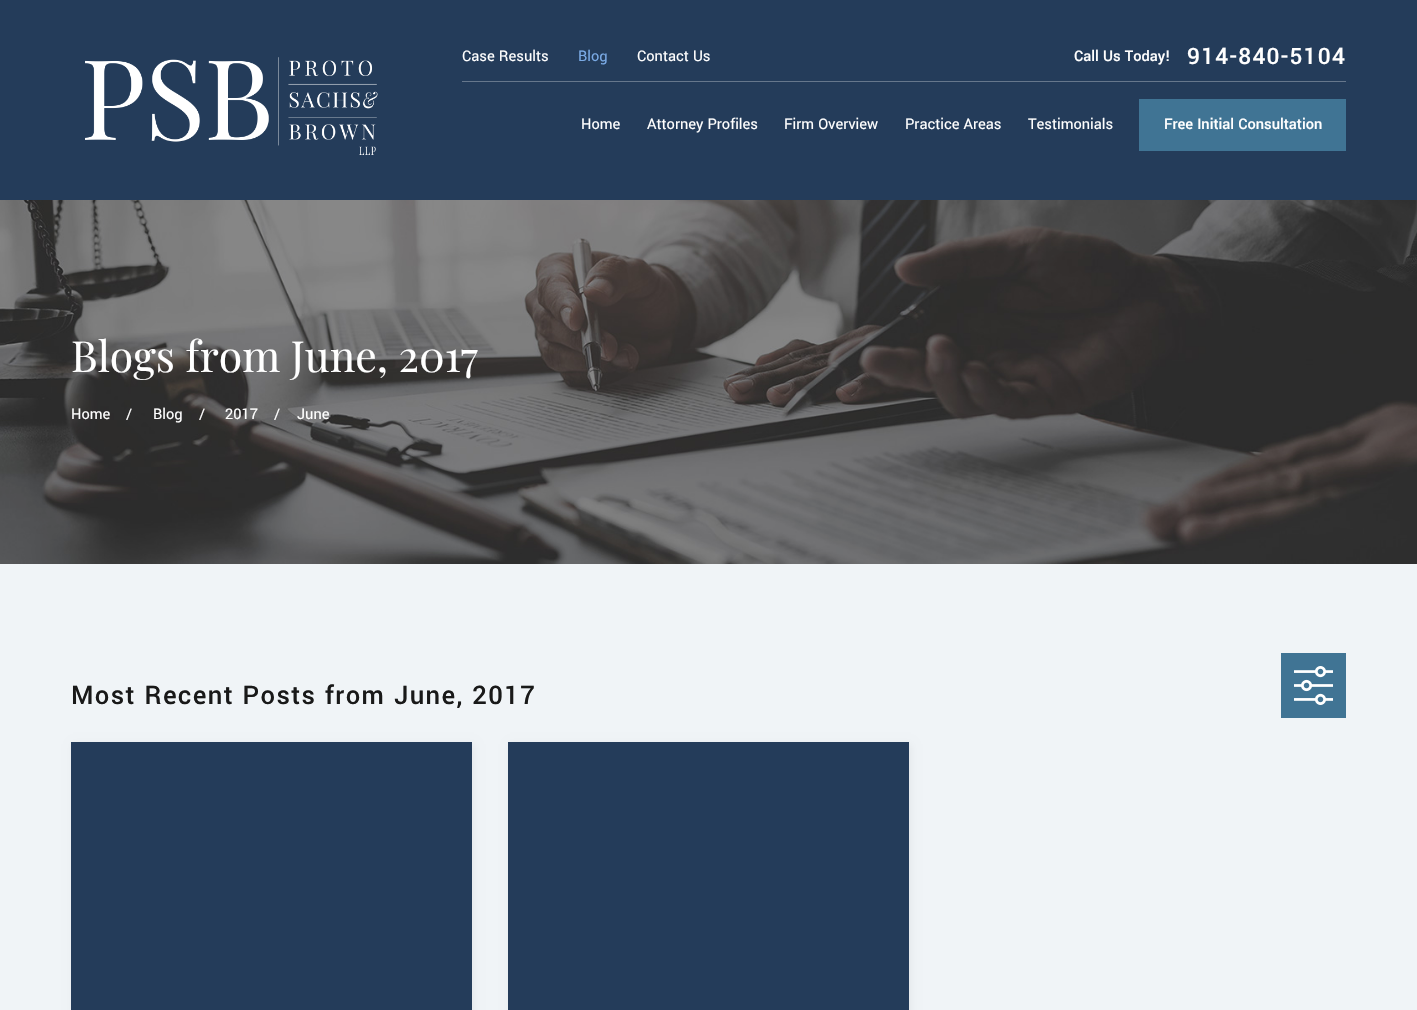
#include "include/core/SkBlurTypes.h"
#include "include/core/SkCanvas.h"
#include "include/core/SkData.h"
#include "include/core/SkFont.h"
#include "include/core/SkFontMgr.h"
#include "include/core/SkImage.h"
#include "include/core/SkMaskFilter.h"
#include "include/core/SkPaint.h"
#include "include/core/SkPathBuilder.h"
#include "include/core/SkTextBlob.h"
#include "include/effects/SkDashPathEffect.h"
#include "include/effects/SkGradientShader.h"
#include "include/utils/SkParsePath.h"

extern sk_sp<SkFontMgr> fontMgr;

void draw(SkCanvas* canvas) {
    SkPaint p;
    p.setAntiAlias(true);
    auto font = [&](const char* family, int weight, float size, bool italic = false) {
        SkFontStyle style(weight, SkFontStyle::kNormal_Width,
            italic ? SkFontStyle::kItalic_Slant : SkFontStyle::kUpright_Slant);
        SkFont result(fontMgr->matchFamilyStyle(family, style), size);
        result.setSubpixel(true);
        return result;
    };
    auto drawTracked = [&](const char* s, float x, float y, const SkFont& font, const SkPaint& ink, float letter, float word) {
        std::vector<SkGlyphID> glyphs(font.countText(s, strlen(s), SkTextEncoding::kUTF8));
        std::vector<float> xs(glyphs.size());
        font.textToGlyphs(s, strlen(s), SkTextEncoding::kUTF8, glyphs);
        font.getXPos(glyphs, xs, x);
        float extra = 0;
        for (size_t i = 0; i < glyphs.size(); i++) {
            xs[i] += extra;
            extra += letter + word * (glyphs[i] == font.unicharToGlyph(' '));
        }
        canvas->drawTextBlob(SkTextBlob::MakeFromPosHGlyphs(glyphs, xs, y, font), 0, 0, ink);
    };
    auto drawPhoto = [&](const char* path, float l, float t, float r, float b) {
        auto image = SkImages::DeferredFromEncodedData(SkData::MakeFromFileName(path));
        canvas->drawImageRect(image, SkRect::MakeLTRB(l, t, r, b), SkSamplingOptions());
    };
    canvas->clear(0xFFFFFFFF);
    p.setColor(0xFF243C5A);
    canvas->drawRect(SkRect::MakeLTRB(0, 0, 1417, 200), p);
    drawPhoto("media/1.png", 85, 57, 378, 155);
    p.setColor(0xFF66778C);
    canvas->drawRect(SkRect::MakeLTRB(462, 81, 1346, 82), p);
    auto font1 = font("Yantramanav", 400, 16.25f);
    p.setColor(0xFFFFFFFF);
    canvas->drawString("Case Results", 462, 61, font1, p);
    p.setColor(0xFF7AAAE5);
    canvas->drawString("Blog", 578, 61, font1, p);
    p.setColor(0xFFFFFFFF);
    canvas->drawString("Contact Us", 637, 61, font1, p);
    auto font2 = font("Yantramanav", 500, 16.25f);
    canvas->drawString("Call Us Today!", 1074, 61, font2, p);
    auto font3 = font("Yantramanav", 500, 25.25f);
    drawTracked("914-840-5104", 1187, 64, font3, p, 1.25f, 0);
    {
        const struct { const char* s; float x, y; } items[] = {
            {"Home", 581, 129},
            {"Attorney Profiles", 647, 129},
            {"Firm Overview", 784, 129},
            {"Practice Areas", 905, 129},
            {"Testimonials", 1028, 129},
        };
        for (auto [s, x, y] : items) {
            canvas->drawString(s, x, y, font1, p);
        }
    }
    p.setColor(0xFF407494);
    canvas->drawRect(SkRect::MakeLTRB(1139, 99, 1346, 151), p);
    p.setColor(0xFFFFFFFF);
    canvas->drawString("Free Initial Consultation", 1164, 129, font2, p);
    drawPhoto("media/2.png", 0, 200, 1417, 564);
    auto font4 = font("Playfair Display", 400, 42.75f);
    canvas->drawString("Blogs from June, 2017", 71, 372, font4, p);
    {
        const struct { const char* s; float x, y; } items[] = {
            {"Home", 71, 419},
            {"/", 126, 419},
            {"Blog", 153, 419},
            {"/", 199, 419},
            {"2017", 225, 419},
            {"/", 274, 419},
            {"June", 297, 419},
        };
        for (auto [s, x, y] : items) {
            canvas->drawString(s, x, y, font1, p);
        }
    }
    p.setColor(0xFFF0F4F7);
    canvas->drawRect(SkRect::MakeLTRB(0, 564, 1417, 1010), p);
    auto font5 = font("Yantramanav", 500, 28.5f);
    p.setColor(0xFF191919);
    drawTracked("Most Recent Posts from June, 2017", 71, 704, font5, p, 1.4f, 0);
    p.setColor(0xFF407494);
    canvas->drawRect(SkRect::MakeLTRB(1281, 653, 1346, 718), p);
    drawPhoto("media/3.png", 1294, 666, 1333, 705);
    p.setColor(0x0D000000);
    p.setMaskFilter(SkMaskFilter::MakeBlur(kNormal_SkBlurStyle, 4));
    canvas->drawRect(SkRect::MakeLTRB(73, 744, 474, 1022), p);
    p.setMaskFilter(nullptr);
    p.setColor(0xFF243C5A);
    canvas->drawRect(SkRect::MakeLTRB(71, 742, 472, 1010), p);
    p.setColor(0x0D000000);
    p.setMaskFilter(SkMaskFilter::MakeBlur(kNormal_SkBlurStyle, 4));
    canvas->drawRect(SkRect::MakeLTRB(510, 744, 911, 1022), p);
    p.setMaskFilter(nullptr);
    p.setColor(0xFF243C5A);
    canvas->drawRect(SkRect::MakeLTRB(508, 742, 909, 1010), p);
}
